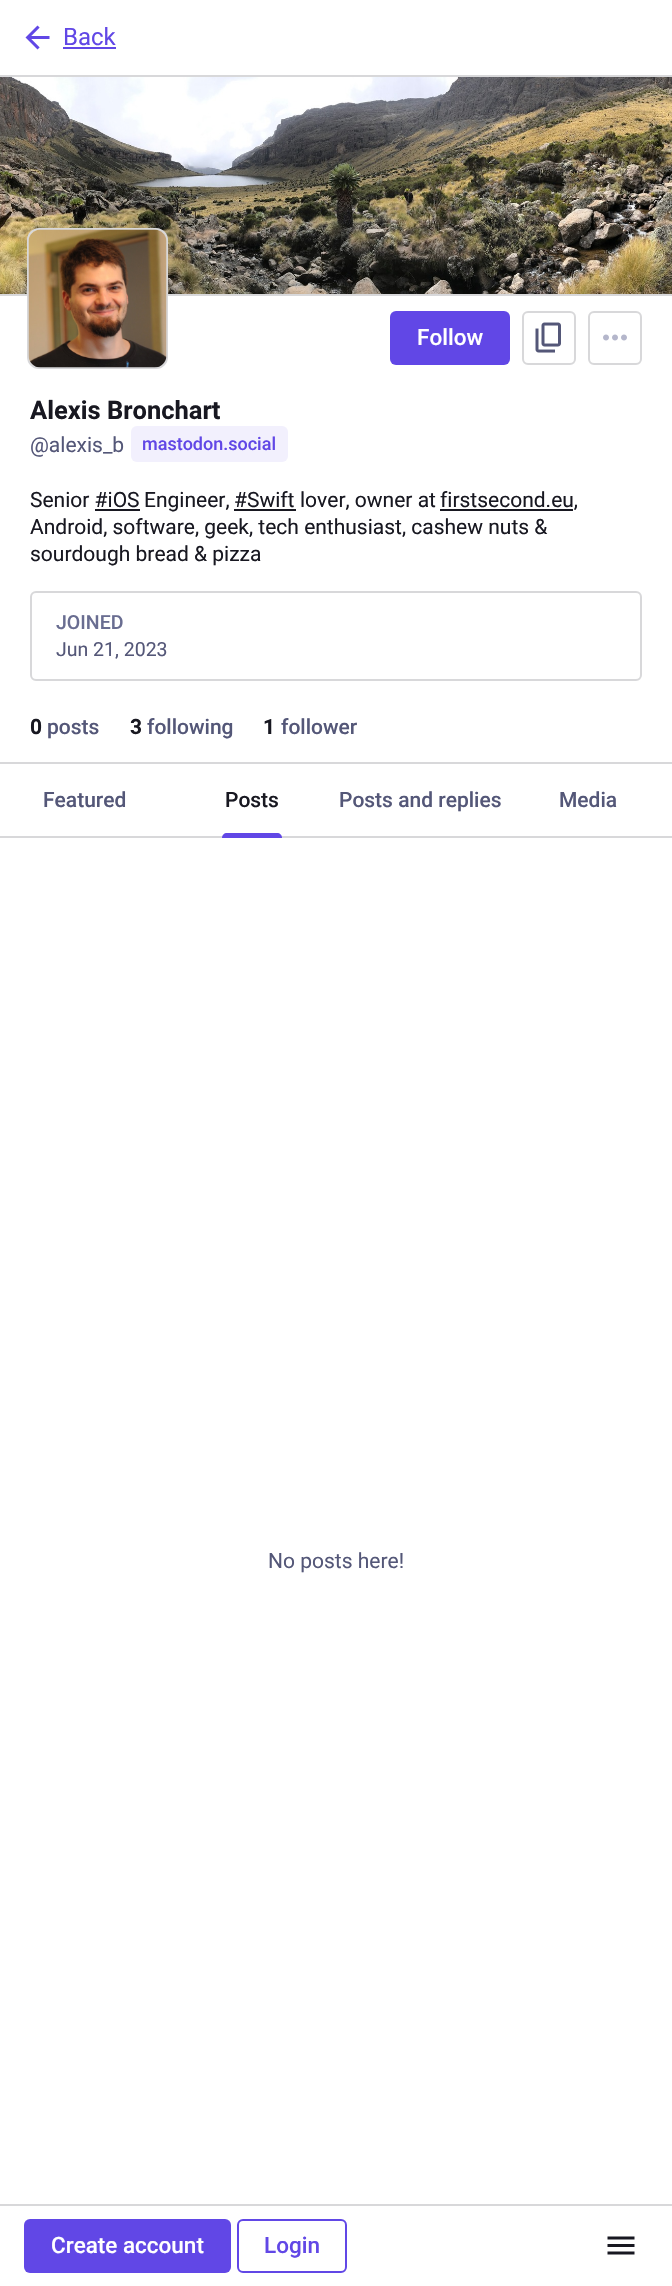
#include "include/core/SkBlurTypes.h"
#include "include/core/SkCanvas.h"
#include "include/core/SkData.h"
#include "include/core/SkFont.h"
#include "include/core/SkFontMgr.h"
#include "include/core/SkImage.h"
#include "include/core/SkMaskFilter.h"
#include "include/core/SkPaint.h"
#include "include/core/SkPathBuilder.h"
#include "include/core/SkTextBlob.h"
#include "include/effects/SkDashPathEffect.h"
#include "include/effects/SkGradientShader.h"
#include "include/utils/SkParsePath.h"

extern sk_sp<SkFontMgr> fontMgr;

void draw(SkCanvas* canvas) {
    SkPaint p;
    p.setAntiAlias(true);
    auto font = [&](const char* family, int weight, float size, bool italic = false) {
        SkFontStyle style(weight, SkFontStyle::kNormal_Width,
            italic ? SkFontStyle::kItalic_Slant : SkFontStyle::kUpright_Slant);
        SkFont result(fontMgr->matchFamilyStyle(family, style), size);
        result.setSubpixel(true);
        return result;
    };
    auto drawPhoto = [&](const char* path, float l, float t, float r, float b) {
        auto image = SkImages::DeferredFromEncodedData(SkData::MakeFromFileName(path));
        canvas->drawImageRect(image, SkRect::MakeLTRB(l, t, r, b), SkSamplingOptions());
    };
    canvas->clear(0xFFFFFFFF);
    p.setColor(0xFFD8D8DA);
    canvas->drawRect(SkRect::MakeLTRB(0, 75, 672, 77), p);
    drawPhoto("media/1.png", 25, 25, 50, 50);
    auto font1 = font("Roboto", 400, 24);
    p.setColor(0xFF6147E6);
    canvas->drawString("Back", 63, 45, font1, p);
    canvas->drawRect(SkRect::MakeLTRB(63, 47, 116, 49), p);
    p.setColor(0xFFD8D8DA);
    canvas->drawRect(SkRect::MakeLTRB(0, 294, 672, 296), p);
    drawPhoto("media/2.png", 0, 77, 672, 294);
    canvas->drawRect(SkRect::MakeLTRB(0, 762, 672, 764), p);
    p.setColor(0xFFFFFFFF);
    canvas->drawRoundRect(SkRect::MakeLTRB(28, 229, 167, 368), 11, 11, p);
    p.setStyle(SkPaint::kStroke_Style);
    p.setStrokeWidth(2);
    p.setColor(0xFFD8D8DA);
    canvas->drawRoundRect(SkRect::MakeLTRB(28, 229, 167, 368), 11, 11, p);
    drawPhoto("media/3.png", 28, 229, 167, 368);
    p.setStyle(SkPaint::kFill_Style);
    p.setColor(0xFF6147E6);
    canvas->drawRoundRect(SkRect::MakeLTRB(390, 311, 510, 365), 6, 6, p);
    auto font2 = font("Roboto", 500, 22.5f);
    p.setColor(0xFFFFFFFF);
    canvas->drawString("Follow", 417, 345, font2, p);
    p.setStyle(SkPaint::kStroke_Style);
    p.setColor(0xFFD8D8DA);
    canvas->drawRoundRect(SkRect::MakeLTRB(523, 312, 575, 364), 5, 5, p);
    drawPhoto("media/4.png", 535, 322, 561, 353);
    canvas->drawRoundRect(SkRect::MakeLTRB(589, 312, 641, 364), 5, 5, p);
    drawPhoto("media/5.png", 603, 334, 627, 341);
    auto font3 = font("Roboto", 700, 25.5f);
    p.setStyle(SkPaint::kFill_Style);
    p.setColor(0xFF181821);
    canvas->drawString("Alexis Bronchart", 30, 419, font3, p);
    auto font4 = font("Roboto", 400, 21);
    p.setColor(0xFF545778);
    canvas->drawString("@alexis_b", 30, 452, font4, p);
    p.setColor(0xFFF2F0FD);
    canvas->drawRoundRect(SkRect::MakeLTRB(131, 426, 288, 462), 6, 6, p);
    auto font5 = font("Roboto", 500, 18);
    p.setColor(0xFF6147E6);
    canvas->drawString("mastodon.social", 142, 450, font5, p);
    p.setColor(0xFF181821);
    {
        const struct { const char* s; float x, y; } items[] = {
            {"Senior #iOS", 30, 507},
            {"Engineer,", 144, 507},
            {"#Swift", 234, 507},
        };
        for (auto [s, x, y] : items) {
            canvas->drawString(s, x, y, font4, p);
        }
    }
    canvas->drawRect(SkRect::MakeLTRB(234, 509, 296, 511), p);
    canvas->drawString("lover, owner at", 300, 507, font4, p);
    canvas->drawRect(SkRect::MakeLTRB(440, 509, 573, 511), p);
    canvas->drawString("firstsecond.eu,", 440, 507, font4, p);
    canvas->drawRect(SkRect::MakeLTRB(95, 509, 140, 511), p);
    canvas->drawString("Android, software, geek, tech enthusiast, cashew nuts &", 30, 534, font4, p);
    canvas->drawString("sourdough bread & pizza", 30, 561, font4, p);
    p.setStyle(SkPaint::kStroke_Style);
    p.setColor(0xFFD8D8DA);
    canvas->drawRoundRect(SkRect::MakeLTRB(31, 592, 641, 680), 5, 5, p);
    auto font6 = font("Roboto", 500, 19.5f);
    p.setStyle(SkPaint::kFill_Style);
    p.setColor(0xFF696D91);
    canvas->drawString("JOINED", 56, 629, font6, p);
    auto font7 = font("Roboto", 400, 19.5f);
    p.setColor(0xFF545778);
    canvas->drawString("Jun 21, 2023", 56, 656, font7, p);
    auto font8 = font("Roboto", 700, 21);
    p.setColor(0xFF181821);
    canvas->drawString("0", 30, 734, font8, p);
    auto font9 = font("Roboto", 500, 21);
    p.setColor(0xFF545778);
    canvas->drawString("posts", 47, 734, font9, p);
    p.setColor(0xFF181821);
    canvas->drawString("3", 130, 734, font8, p);
    p.setColor(0xFF545778);
    canvas->drawString("following", 147, 734, font9, p);
    p.setColor(0xFF181821);
    canvas->drawString("1", 263, 734, font8, p);
    p.setColor(0xFF545778);
    canvas->drawString("follower", 281, 734, font9, p);
    p.setColor(0xFFD8D8DA);
    canvas->drawRect(SkRect::MakeLTRB(0, 836, 672, 838), p);
    p.setColor(0xFF545778);
    canvas->drawString("Featured", 43, 807, font9, p);
    p.setColor(0xFF181821);
    canvas->drawString("Posts", 225, 807, font9, p);
    p.setColor(0xFF6147E6);
    canvas->drawPath(SkPathBuilder().moveTo(227, 833).lineTo(277, 833).cubicTo(280, 833, 282, 835, 282, 838).lineTo(222, 838).cubicTo(222, 835, 224, 833, 227, 833).close().detach(), p);
    p.setColor(0xFF545778);
    canvas->drawString("Posts and replies", 339, 807, font9, p);
    canvas->drawString("Media", 559, 807, font9, p);
    canvas->drawString("No posts here!", 268, 1568, font4, p);
    p.setColor(0xFFD8D8DA);
    canvas->drawRect(SkRect::MakeLTRB(0, 2204, 672, 2206), p);
    p.setColor(0xFF6147E6);
    canvas->drawRoundRect(SkRect::MakeLTRB(24, 2219, 231, 2273), 6, 6, p);
    p.setColor(0xFFFFFFFF);
    canvas->drawString("Create account", 51, 2253, font2, p);
    p.setStyle(SkPaint::kStroke_Style);
    p.setColor(0xFF6147E6);
    canvas->drawRoundRect(SkRect::MakeLTRB(238, 2220, 346, 2272), 5, 5, p);
    p.setStyle(SkPaint::kFill_Style);
    canvas->drawString("Login", 264, 2253, font2, p);
    drawPhoto("media/6.png", 607, 2236, 635, 2255);
}
